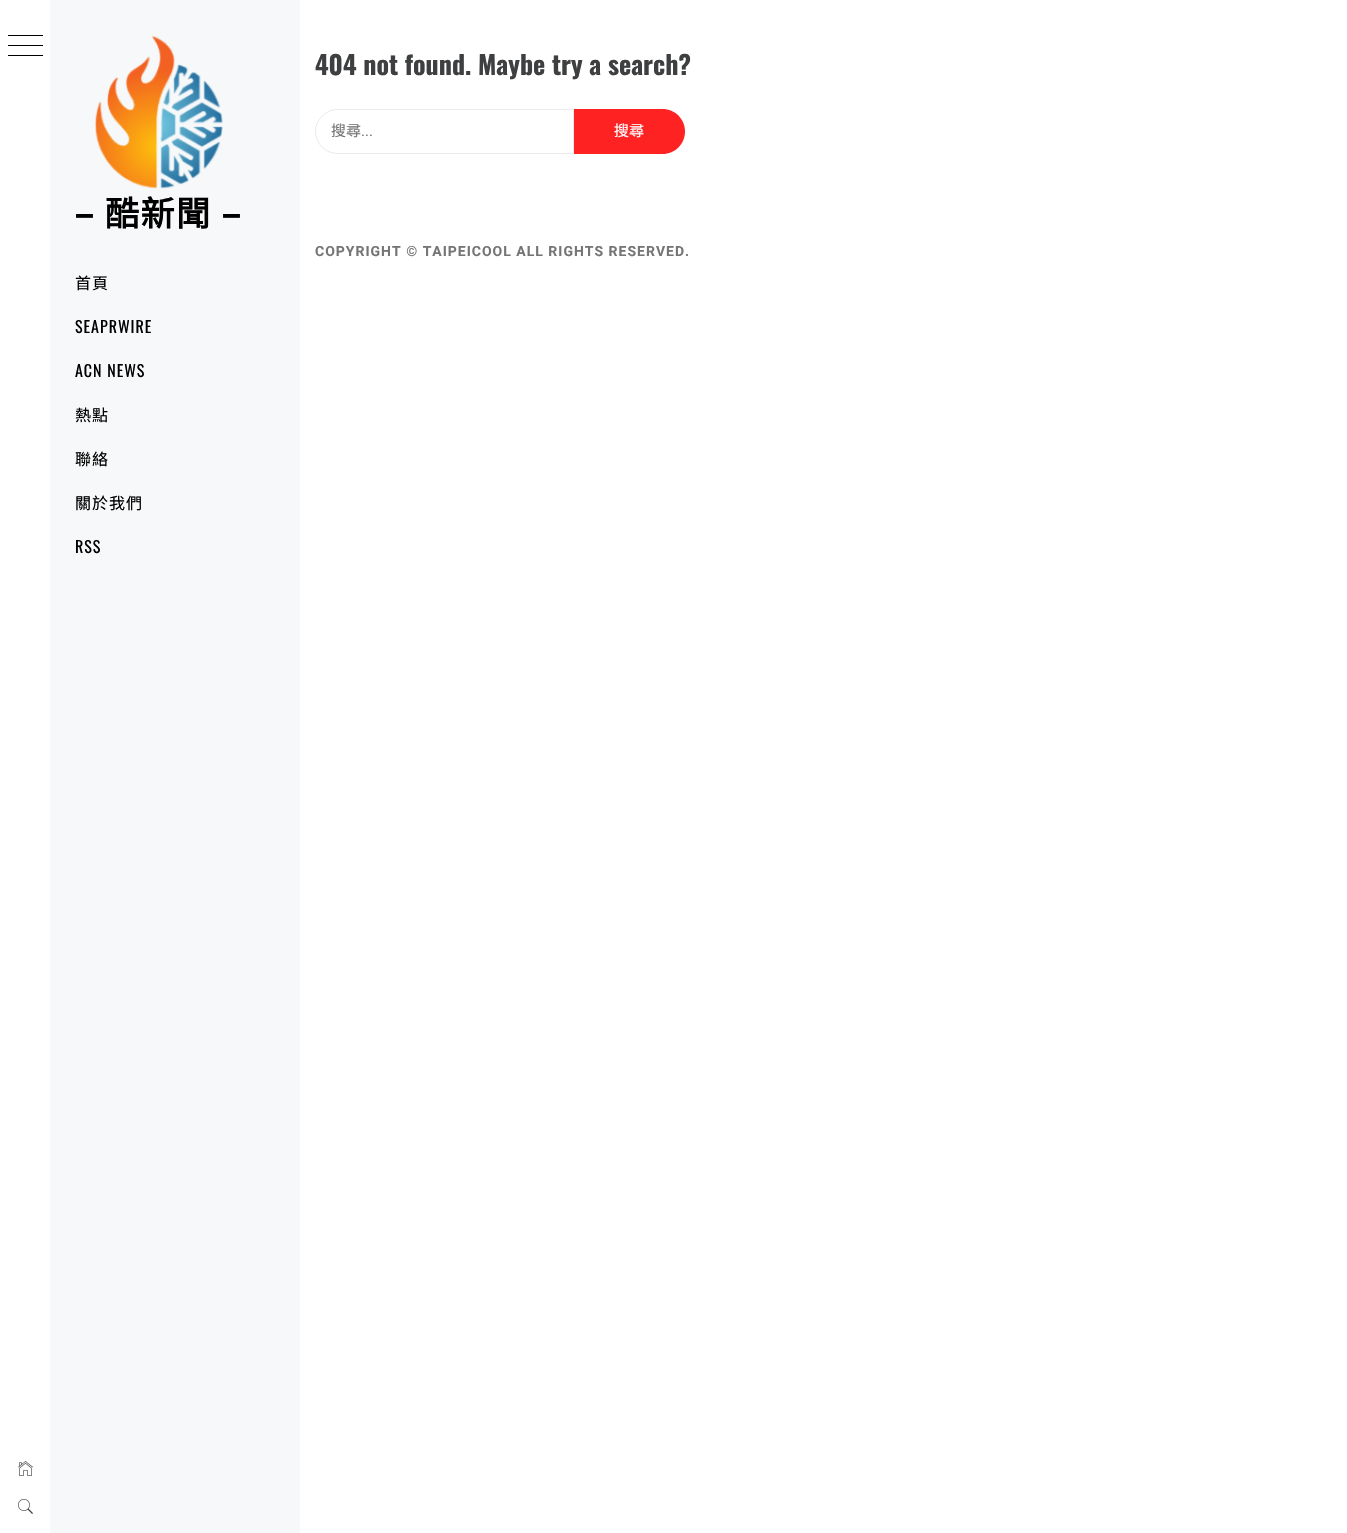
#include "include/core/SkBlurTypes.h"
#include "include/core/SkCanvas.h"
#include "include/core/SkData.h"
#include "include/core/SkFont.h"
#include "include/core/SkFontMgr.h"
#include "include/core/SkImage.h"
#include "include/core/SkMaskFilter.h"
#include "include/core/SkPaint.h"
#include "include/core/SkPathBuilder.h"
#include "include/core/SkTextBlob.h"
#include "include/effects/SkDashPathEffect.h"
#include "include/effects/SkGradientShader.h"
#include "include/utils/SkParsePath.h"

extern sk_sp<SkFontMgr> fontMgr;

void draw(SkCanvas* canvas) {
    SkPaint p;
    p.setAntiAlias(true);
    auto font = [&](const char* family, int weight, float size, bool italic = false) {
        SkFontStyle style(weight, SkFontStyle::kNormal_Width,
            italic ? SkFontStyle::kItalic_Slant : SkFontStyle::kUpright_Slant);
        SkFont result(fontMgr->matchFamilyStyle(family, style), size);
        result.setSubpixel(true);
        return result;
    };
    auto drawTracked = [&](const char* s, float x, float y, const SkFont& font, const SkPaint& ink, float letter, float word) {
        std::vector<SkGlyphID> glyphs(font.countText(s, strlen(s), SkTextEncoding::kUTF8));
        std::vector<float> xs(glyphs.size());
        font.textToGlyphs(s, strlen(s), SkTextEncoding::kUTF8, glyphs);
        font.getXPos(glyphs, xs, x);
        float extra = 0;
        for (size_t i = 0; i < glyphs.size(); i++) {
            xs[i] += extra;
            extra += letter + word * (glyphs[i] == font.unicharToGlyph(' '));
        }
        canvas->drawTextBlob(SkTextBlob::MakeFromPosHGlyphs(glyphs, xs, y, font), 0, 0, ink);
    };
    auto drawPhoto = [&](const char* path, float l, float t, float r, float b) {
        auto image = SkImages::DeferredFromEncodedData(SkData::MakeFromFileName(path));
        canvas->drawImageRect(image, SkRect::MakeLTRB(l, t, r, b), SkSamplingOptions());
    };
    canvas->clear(0xFFFFFFFF);
    auto font1 = font("Oswald", 700, 26);
    p.setColor(0xFF3E3F40);
    canvas->drawString("404 not found. Maybe try a search?", 315, 75, font1, p);
    p.setStyle(SkPaint::kStroke_Style);
    p.setStrokeWidth(1);
    p.setColor(0xFFEAEAEA);
    canvas->drawPath(SkPathBuilder().moveTo(337.5f, 109.5f).lineTo(573.5f, 109.5f).lineTo(573.5f, 153.5f).lineTo(337.5f, 153.5f).cubicTo(325.5f, 153.5f, 315.5f, 143.5f, 315.5f, 131.5f).cubicTo(315.5f, 119.5f, 325.5f, 109.5f, 337.5f, 109.5f).close().detach(), p);
    auto font2 = font("Noto Sans CJK TC", 400, 15);
    p.setStyle(SkPaint::kFill_Style);
    p.setColor(0xFF757575);
    canvas->drawString("搜尋", 331, 136, font2, p);
    auto font3 = font("Roboto", 400, 15);
    canvas->drawString("...", 361, 136, font3, p);
    p.setColor(0xFFFF2222);
    canvas->drawPath(SkPathBuilder().moveTo(574, 109).lineTo(662.5f, 109).cubicTo(675, 109, 685, 119, 685, 131.5f).cubicTo(685, 144, 675, 154, 662.5f, 154).lineTo(574, 154).close().detach(), p);
    p.setColor(0xFFFFFFFF);
    canvas->drawString("搜尋", 614, 136, font2, p);
    auto font4 = font("Roboto", 700, 14);
    p.setColor(0xFF757575);
    drawTracked("COPYRIGHT © TAIPEICOOL ALL RIGHTS RESERVED.", 315, 256, font4, p, 1, 0);
    {
        const struct { float l, t, r, b; SkColor color; } items[] = {
            {8, 35, 43, 36, 0xFF000000},
            {8, 45, 43, 46, 0xFF000000},
            {8, 55, 43, 56, 0xFF000000},
        };
        for (auto [l, t, r, b, color] : items) {
            p.setColor(color);
            canvas->drawRect(SkRect::MakeLTRB(l, t, r, b), p);
        }
    }
    drawPhoto("media/1.png", 18, 1461, 33, 1476);
    drawPhoto("media/2.png", 18, 1499, 33, 1514);
    p.setColor(0xFFF6F8F9);
    canvas->drawRect(SkRect::MakeLTRB(50, 0, 300, 1533), p);
    drawPhoto("media/3.png", 95, 35, 223, 189);
    auto font5 = font("Oswald", 700, 34);
    p.setColor(0xFF000000);
    drawTracked("–", 75, 226, font5, p, 1.5f, 0);
    auto font6 = font("Noto Sans CJK TC", 700, 34);
    drawTracked("酷新聞", 105, 226, font6, p, 1.5f, 0);
    drawTracked("–", 222, 226, font5, p, 1.5f, 0);
    auto font7 = font("Noto Sans CJK TC", 400, 16);
    drawTracked("首頁", 75, 289, font7, p, 1, 0);
    auto font8 = font("Oswald", 400, 16);
    drawTracked("SEAPRWIRE", 75, 333, font8, p, 1, 0);
    drawTracked("ACN NEWS", 75, 377, font8, p, 1, 0);
    {
        const struct { const char* s; float x, y; } items[] = {
            {"熱點", 75, 421},
            {"聯絡", 75, 465},
            {"關於我們", 75, 509},
        };
        for (auto [s, x, y] : items) {
            drawTracked(s, x, y, font7, p, 1, 0);
        }
    }
    drawTracked("RSS", 75, 553, font8, p, 1, 0);
}
